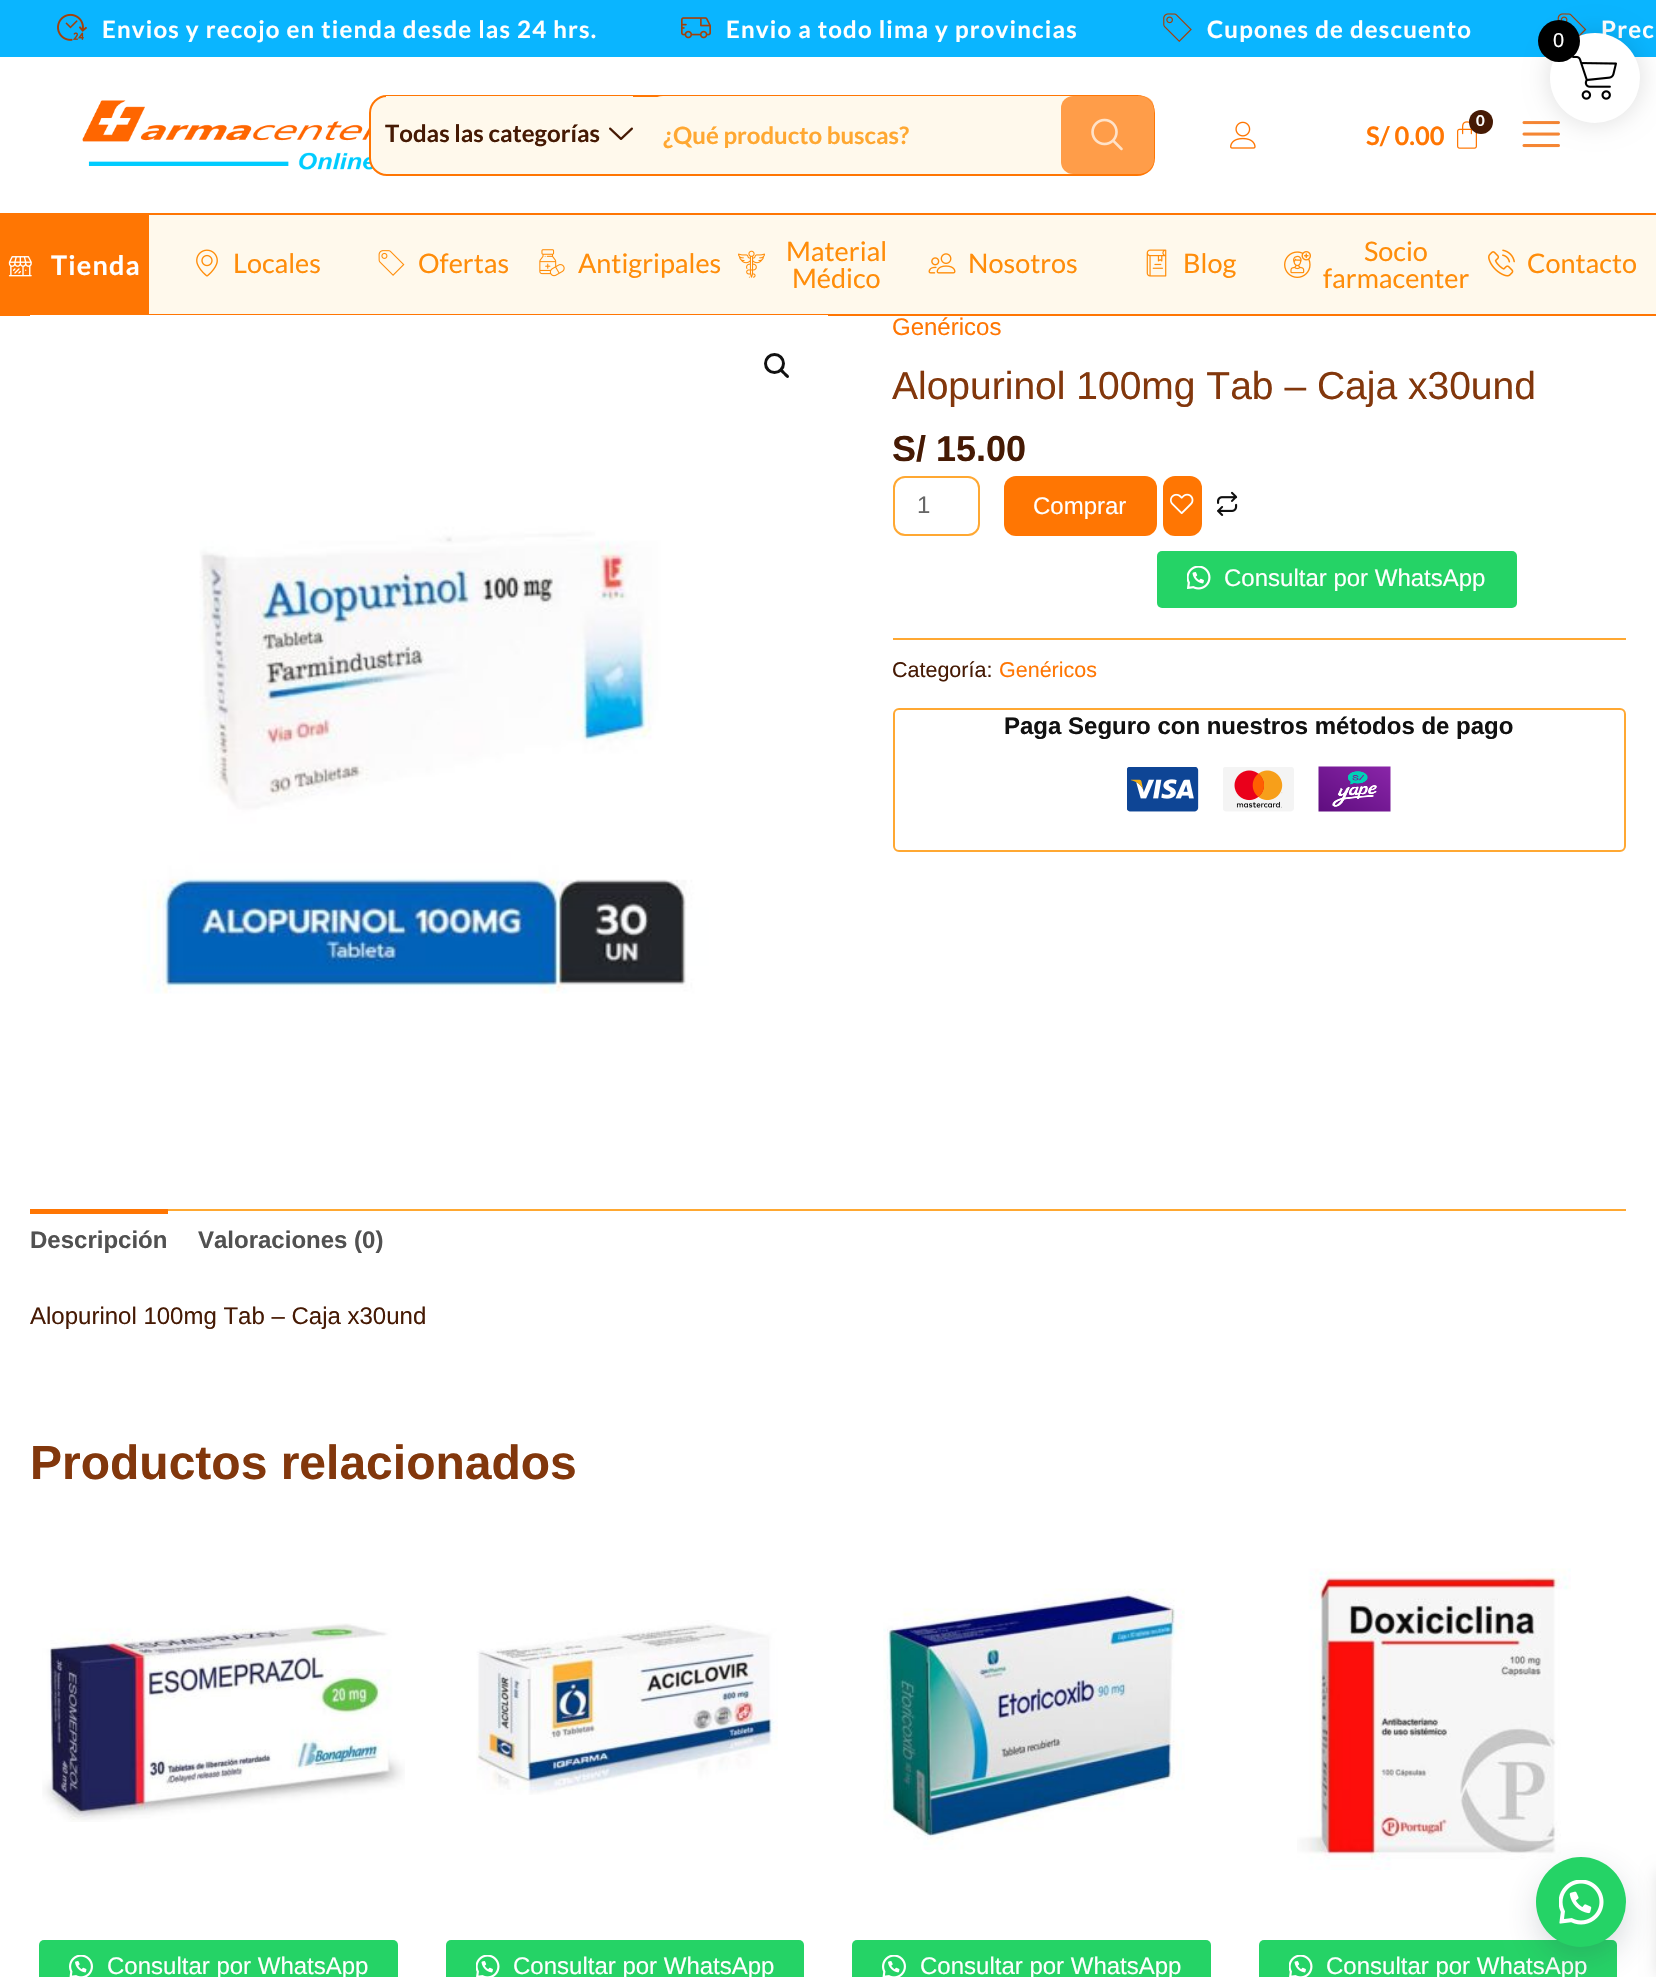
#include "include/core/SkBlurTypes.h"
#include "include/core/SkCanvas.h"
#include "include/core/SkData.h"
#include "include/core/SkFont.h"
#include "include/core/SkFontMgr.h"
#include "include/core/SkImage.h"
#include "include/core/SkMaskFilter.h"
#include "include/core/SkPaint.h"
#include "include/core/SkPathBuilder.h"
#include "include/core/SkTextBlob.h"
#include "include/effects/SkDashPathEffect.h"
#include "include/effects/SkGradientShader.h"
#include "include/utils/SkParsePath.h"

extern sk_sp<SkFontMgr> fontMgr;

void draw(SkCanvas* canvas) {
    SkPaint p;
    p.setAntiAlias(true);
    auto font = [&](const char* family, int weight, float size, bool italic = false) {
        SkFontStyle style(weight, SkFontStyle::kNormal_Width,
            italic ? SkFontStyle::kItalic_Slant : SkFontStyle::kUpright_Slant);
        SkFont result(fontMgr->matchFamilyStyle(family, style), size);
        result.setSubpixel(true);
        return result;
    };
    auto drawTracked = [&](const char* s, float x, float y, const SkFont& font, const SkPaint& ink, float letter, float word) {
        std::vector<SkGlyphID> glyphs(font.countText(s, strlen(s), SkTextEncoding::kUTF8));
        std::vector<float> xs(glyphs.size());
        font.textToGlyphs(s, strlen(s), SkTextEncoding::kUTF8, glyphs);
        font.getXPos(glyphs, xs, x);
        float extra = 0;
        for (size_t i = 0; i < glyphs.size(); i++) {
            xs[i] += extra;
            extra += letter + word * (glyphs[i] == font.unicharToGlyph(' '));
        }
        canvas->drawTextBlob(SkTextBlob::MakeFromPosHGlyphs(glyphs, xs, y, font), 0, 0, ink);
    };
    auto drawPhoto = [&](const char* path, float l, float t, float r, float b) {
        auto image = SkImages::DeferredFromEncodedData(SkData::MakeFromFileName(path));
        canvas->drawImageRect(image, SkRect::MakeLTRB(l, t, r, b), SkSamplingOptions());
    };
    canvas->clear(0xFFFFFFFF);
    p.setColor(0xFF0AB5FF);
    canvas->drawRect(SkRect::MakeLTRB(0, 0, 1656, 57), p);
    drawPhoto("media/1.png", 57, 13, 87, 41);
    auto font1 = font("Lato", 700, 24);
    p.setColor(0xFFFFFFFF);
    drawTracked("Envios y recojo en tienda desde las 24 hrs.", 102, 38, font1, p, 1.2f, 0);
    drawPhoto("media/2.png", 681, 17, 711, 39);
    drawTracked("Envio a todo lima y provincias", 726, 38, font1, p, 1.2f, 0);
    drawPhoto("media/3.png", 1163, 13, 1192, 42);
    drawTracked("Cupones de descuento", 1207, 38, font1, p, 1.2f, 0);
    drawPhoto("media/4.png", 1557, 13, 1587, 36);
    drawTracked("Prec", 1601, 38, font1, p, 1.2f, 0);
    drawPhoto("media/5.png", 82, 100, 373, 170);
    p.setColor(0xFFFFF9EC);
    canvas->drawRoundRect(SkRect::MakeLTRB(370, 96, 1154, 175), 17, 17, p);
    p.setStyle(SkPaint::kStroke_Style);
    p.setStrokeWidth(2);
    p.setColor(0xFFFF7603);
    canvas->drawRoundRect(SkRect::MakeLTRB(370, 96, 1154, 175), 17, 17, p);
    p.setStyle(SkPaint::kFill_Style);
    p.setColor(0xFFFFF9EC);
    canvas->drawRect(SkRect::MakeLTRB(386, 96, 633, 98), p);
    p.setColor(0xFF461A04);
    canvas->drawString("Todas las categorías", 385, 142, font1, p);
    drawPhoto("media/6.png", 609, 127, 633, 140);
    p.setColor(0xFFFFF9EC);
    canvas->drawRoundRect(SkRect::MakeLTRB(648, 96, 1154, 174), 15, 15, p);
    p.setColor(0xFFFFA832);
    canvas->drawString("¿Qué producto buscas?", 663, 144, font1, p);
    p.setColor(0xB3FF7603);
    canvas->drawRoundRect(SkRect::MakeLTRB(1061, 96, 1154, 174), 12, 12, p);
    drawPhoto("media/7.png", 1091, 118, 1123, 151);
    drawPhoto("media/8.png", 1230, 121, 1256, 149);
    drawPhoto("media/9.png", 1457, 121, 1477, 149);
    p.setColor(0xFF461A04);
    canvas->drawCircle(1481, 122, 12, p);
    auto font2 = font("Lato", 700, 15);
    p.setColor(0xFFFFFFFF);
    canvas->drawString("0", 1476, 126, font2, p);
    auto font3 = font("Lato", 700, 25.5f);
    p.setColor(0xFFFF7603);
    canvas->drawString("S/ 0.00", 1366, 145, font3, p);
    drawPhoto("media/10.png", 1522, 121, 1560, 148);
    {
        const struct { float l, t, r, b; SkColor color; } items[] = {
            {149, 215, 1656, 314, 0xFFFFF9EC},
            {0, 213, 1656, 215, 0xFFFF7603},
            {0, 314, 1656, 316, 0xFFFF7603},
            {0, 215, 149, 314, 0xFFFF7603},
        };
        for (auto [l, t, r, b, color] : items) {
            p.setColor(color);
            canvas->drawRect(SkRect::MakeLTRB(l, t, r, b), p);
        }
    }
    drawPhoto("media/11.png", 8, 256, 32, 277);
    auto font4 = font("Lato", 700, 27);
    p.setColor(0xFFFFFFFF);
    drawTracked("Tienda", 51, 275, font4, p, 1.2f, 0);
    drawPhoto("media/12.png", 196, 249, 218, 277);
    auto font5 = font("Lato", 400, 27);
    p.setColor(0xFFFF8D0A);
    canvas->drawString("Locales", 233, 273, font5, p);
    drawPhoto("media/13.png", 378, 250, 405, 276);
    canvas->drawString("Ofertas", 418, 273, font5, p);
    drawPhoto("media/14.png", 539, 249, 565, 277);
    canvas->drawString("Antigripales", 578, 273, font5, p);
    drawPhoto("media/15.png", 738, 250, 765, 278);
    canvas->drawString("Material", 786, 261, font5, p);
    canvas->drawString("Médico", 792, 288, font5, p);
    drawPhoto("media/16.png", 928, 253, 956, 274);
    canvas->drawString("Nosotros", 968, 273, font5, p);
    drawPhoto("media/17.png", 1146, 249, 1167, 277);
    canvas->drawString("Blog", 1183, 273, font5, p);
    drawPhoto("media/18.png", 1284, 251, 1311, 278);
    canvas->drawString("Socio", 1364, 261, font5, p);
    canvas->drawString("farmacenter", 1323, 288, font5, p);
    drawPhoto("media/19.png", 1488, 249, 1515, 277);
    canvas->drawString("Contacto", 1527, 273, font5, p);
    drawPhoto("media/20.png", 30, 315, 828, 994);
    p.setStyle(SkPaint::kStroke_Style);
    p.setStrokeWidth(3);
    p.setColor(0xFF111111);
    canvas->drawCircle(774.5f, 363.5f, 9, p);
    p.setStyle(SkPaint::kFill_Style);
    canvas->drawPath(SkPathBuilder().moveTo(780.5f, 369.5f).cubicTo(782, 367.5f, 784.5f, 371.5f, 785.5f, 372.5f).cubicTo(786.5f, 373.5f, 790.5f, 376, 788.5f, 377.5f).cubicTo(787, 379.5f, 784.5f, 375.5f, 783.5f, 374.5f).cubicTo(782.5f, 373.5f, 778.5f, 371, 780.5f, 369.5f).close().detach(), p);
    auto font6 = font("Liberation Sans", 400, 24);
    p.setColor(0xFFFF7603);
    canvas->drawString("Genéricos", 892, 335, font6, p);
    auto font7 = font("Liberation Sans", 400, 39);
    p.setColor(0xFF82370C);
    canvas->drawString("Alopurinol 100mg Tab – Caja x30und", 892, 399, font7, p);
    auto font8 = font("Liberation Sans", 700, 36);
    p.setColor(0xFF461A04);
    canvas->drawString("S/ 15.00", 892, 461, font8, p);
    p.setStyle(SkPaint::kStroke_Style);
    p.setStrokeWidth(2);
    p.setColor(0xFFFFA832);
    canvas->drawRoundRect(SkRect::MakeLTRB(894, 477, 979, 535), 11, 11, p);
    p.setStyle(SkPaint::kFill_Style);
    p.setColor(0xFF666666);
    canvas->drawString("1", 917, 513, font6, p);
    p.setColor(0xFFFF7603);
    canvas->drawRoundRect(SkRect::MakeLTRB(1004, 476, 1157, 536), 12, 12, p);
    p.setColor(0xFFFFFFFF);
    canvas->drawString("Comprar", 1033, 514, font6, p);
    p.setColor(0xFFFF7603);
    canvas->drawRoundRect(SkRect::MakeLTRB(1163, 476, 1202, 536), 12, 12, p);
    drawPhoto("media/21.png", 1170, 493, 1194, 515);
    drawPhoto("media/22.png", 1217, 491, 1238, 516);
    p.setColor(0xFF25D366);
    canvas->drawRoundRect(SkRect::MakeLTRB(1157, 551, 1517, 608), 5, 5, p);
    drawPhoto("media/23.png", 1187, 566, 1211, 590);
    p.setColor(0xFFFFFFFF);
    canvas->drawString("Consultar por WhatsApp", 1224, 586, font6, p);
    p.setColor(0xFFFFA832);
    canvas->drawRect(SkRect::MakeLTRB(893, 638, 1626, 640), p);
    auto font9 = font("Liberation Sans", 400, 21.5f);
    p.setColor(0xFF461A04);
    canvas->drawString("Categoría:", 892, 677, font9, p);
    p.setColor(0xFFFF7603);
    canvas->drawString("Genéricos", 999, 677, font9, p);
    p.setStyle(SkPaint::kStroke_Style);
    p.setColor(0xFFFFA832);
    canvas->drawRoundRect(SkRect::MakeLTRB(894, 709, 1625, 851), 5, 5, p);
    auto font10 = font("Liberation Sans", 700, 24);
    p.setStyle(SkPaint::kFill_Style);
    p.setColor(0xFF111111);
    canvas->drawString("Paga Seguro con nuestros métodos de pago", 1004, 734, font10, p);
    drawPhoto("media/24.png", 1127, 767, 1199, 812);
    drawPhoto("media/25.png", 1223, 767, 1294, 812);
    drawPhoto("media/26.png", 1318, 766, 1391, 812);
    p.setColor(0xFFFFA832);
    canvas->drawRect(SkRect::MakeLTRB(168, 1209, 1626, 1211), p);
    p.setColor(0xFFFF7603);
    canvas->drawRect(SkRect::MakeLTRB(30, 1209, 168, 1214), p);
    p.setColor(0xFF515151);
    canvas->drawString("Descripción", 30, 1248, font10, p);
    canvas->drawString("Valoraciones (0)", 198, 1248, font10, p);
    p.setColor(0xFF461A04);
    canvas->drawString("Alopurinol 100mg Tab – Caja x30und", 30, 1324, font6, p);
    auto font11 = font("Liberation Sans", 700, 48);
    p.setColor(0xFF82370C);
    canvas->drawString("Productos relacionados", 30, 1479, font11, p);
    drawPhoto("media/27.png", 42, 1623, 405, 1822);
    p.setColor(0xFF25D366);
    canvas->drawRoundRect(SkRect::MakeLTRB(39, 1940, 398, 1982), 5, 5, p);
    drawPhoto("media/28.png", 69, 1955, 93, 1977);
    p.setColor(0xFFFFFFFF);
    canvas->drawString("Consultar por WhatsApp", 107, 1974, font6, p);
    drawPhoto("media/29.png", 476, 1620, 778, 1795);
    p.setColor(0xFF25D366);
    canvas->drawRoundRect(SkRect::MakeLTRB(446, 1940, 804, 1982), 5, 5, p);
    drawPhoto("media/30.png", 476, 1955, 500, 1977);
    p.setColor(0xFFFFFFFF);
    canvas->drawString("Consultar por WhatsApp", 513, 1974, font6, p);
    drawPhoto("media/31.png", 883, 1588, 1185, 1850);
    p.setColor(0xFF25D366);
    canvas->drawRoundRect(SkRect::MakeLTRB(852, 1940, 1211, 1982), 5, 5, p);
    drawPhoto("media/28.png", 882, 1955, 906, 1977);
    p.setColor(0xFFFFFFFF);
    canvas->drawString("Consultar por WhatsApp", 920, 1974, font6, p);
    drawPhoto("media/32.png", 1297, 1568, 1571, 1870);
    p.setColor(0xFF25D366);
    canvas->drawRoundRect(SkRect::MakeLTRB(1259, 1940, 1617, 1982), 5, 5, p);
    drawPhoto("media/30.png", 1289, 1955, 1313, 1977);
    p.setColor(0xFFFFFFFF);
    canvas->drawString("Consultar por WhatsApp", 1326, 1974, font6, p);
    p.setColor(0x1A000000);
    p.setMaskFilter(SkMaskFilter::MakeBlur(kNormal_SkBlurStyle, 11));
    canvas->drawRoundRect(SkRect::MakeLTRB(1547, 30, 1643, 126), 48, 48, p);
    p.setMaskFilter(nullptr);
    p.setColor(0xFFFFFFFF);
    canvas->drawCircle(1595, 78, 45, p);
    drawPhoto("media/33.png", 1572, 55, 1617, 100);
    p.setColor(0xFF000000);
    canvas->drawCircle(1559, 41, 21, p);
    auto font12 = font("Liberation Sans", 400, 20);
    p.setColor(0xFFFFFFFF);
    canvas->drawString("0", 1553, 47, font12, p);
    p.setColor(0x1A000000);
    p.setMaskFilter(SkMaskFilter::MakeBlur(kNormal_SkBlurStyle, 7.5f));
    canvas->drawRect(SkRect::MakeLTRB(1656, 1871, 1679, 1976), p);
    p.setMaskFilter(nullptr);
    p.setColor(0x4D2D3E4F);
    p.setMaskFilter(SkMaskFilter::MakeBlur(kNormal_SkBlurStyle, 19));
    canvas->drawRoundRect(SkRect::MakeLTRB(1544, 1877, 1619, 1952), 37.5f, 37.5f, p);
    p.setMaskFilter(nullptr);
    p.setColor(0xFF25D366);
    canvas->drawCircle(1581, 1902, 45, p);
    drawPhoto("media/34.png", 1559, 1880, 1604, 1925);
}
